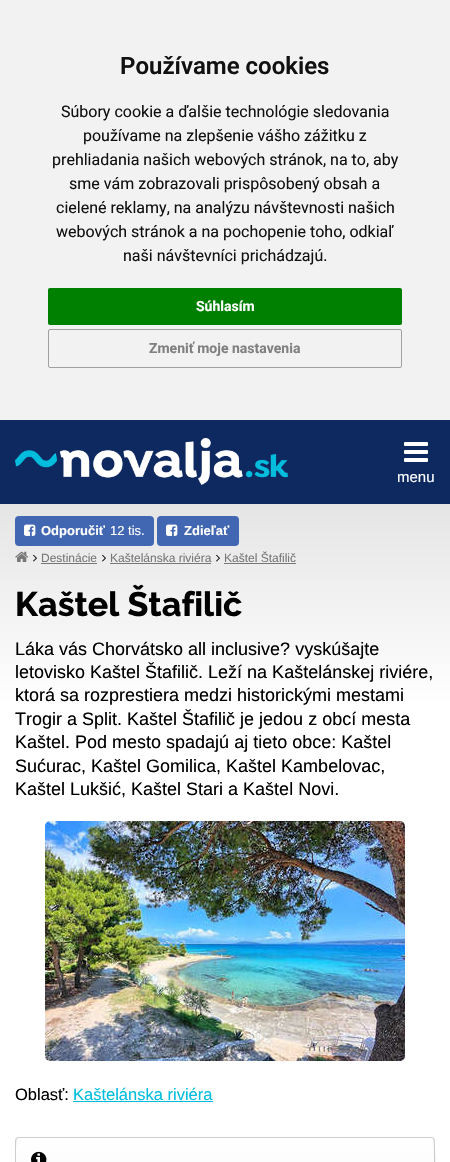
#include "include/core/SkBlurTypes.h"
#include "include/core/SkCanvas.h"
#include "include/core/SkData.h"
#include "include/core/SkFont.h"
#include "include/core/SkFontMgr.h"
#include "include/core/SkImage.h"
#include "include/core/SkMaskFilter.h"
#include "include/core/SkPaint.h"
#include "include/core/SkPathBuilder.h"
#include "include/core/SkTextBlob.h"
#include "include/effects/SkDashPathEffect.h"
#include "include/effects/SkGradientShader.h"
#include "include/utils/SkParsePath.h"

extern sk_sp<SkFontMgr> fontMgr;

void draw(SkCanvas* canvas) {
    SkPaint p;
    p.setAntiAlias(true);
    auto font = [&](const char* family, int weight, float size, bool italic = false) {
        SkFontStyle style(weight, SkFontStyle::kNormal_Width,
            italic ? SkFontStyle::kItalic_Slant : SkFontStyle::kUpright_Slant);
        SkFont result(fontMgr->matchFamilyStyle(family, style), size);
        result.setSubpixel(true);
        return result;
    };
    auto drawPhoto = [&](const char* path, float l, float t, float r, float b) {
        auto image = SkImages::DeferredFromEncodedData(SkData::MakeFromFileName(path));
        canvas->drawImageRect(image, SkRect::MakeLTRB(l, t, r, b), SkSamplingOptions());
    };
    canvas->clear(0xFF0E2960);
    p.setColor(0xFFF2F2F2);
    canvas->drawRect(SkRect::MakeLTRB(0, 0, 450, 420), p);
    auto font1 = font("Roboto", 600, 24);
    p.setColor(0xFF111111);
    canvas->drawString("Používame cookies", 120, 74, font1, p);
    auto font2 = font("Roboto", 400, 16);
    {
        const struct { const char* s; float x, y; } items[] = {
            {"Súbory cookie a ďalšie technológie sledovania", 61, 117},
            {"používame na zlepšenie vášho zážitku z", 83, 141},
            {"prehliadania našich webových stránok, na to, aby", 52, 165},
            {"sme vám zobrazovali prispôsobený obsah a", 69, 189},
            {"cielené reklamy, na analýzu návštevnosti našich", 56, 213},
            {"webových stránok a na pochopenie toho, odkiaľ", 56, 237},
            {"naši návštevníci prichádzajú.", 123, 261},
        };
        for (auto [s, x, y] : items) {
            canvas->drawString(s, x, y, font2, p);
        }
    }
    p.setColor(0xFF008000);
    canvas->drawRoundRect(SkRect::MakeLTRB(48, 288, 402, 325), 2, 2, p);
    auto font3 = font("Roboto", 700, 14);
    p.setColor(0xFFFFFFFF);
    canvas->drawString("Súhlasím", 196, 311, font3, p);
    p.setStyle(SkPaint::kStroke_Style);
    p.setStrokeWidth(1);
    p.setColor(0xFFA0A0A0);
    canvas->drawRoundRect(SkRect::MakeLTRB(48.5f, 329.5f, 401.5f, 367.5f), 1.5f, 1.5f, p);
    p.setStyle(SkPaint::kFill_Style);
    p.setColor(0xFF808080);
    canvas->drawString("Zmeniť moje nastavenia", 149, 353, font3, p);
    drawPhoto("media/1.png", 15, 438, 288, 485);
    drawPhoto("media/2.png", 404, 442, 428, 462);
    auto font4 = font("Liberation Sans", 400, 15);
    p.setColor(0xFFFFFFFF);
    canvas->drawString("menu", 397, 482, font4, p);
    {
        const SkColor colors[] = {0xFFE5E5E5, 0xFFFFFFFF};
        const float stops[] = {0, 0.08f};
        const SkPoint ends[] = {{225, 504}, {225, 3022}};
        p.setShader(SkGradientShader::MakeLinear(ends, colors, stops, 2, SkTileMode::kClamp));
        p.setAlpha(255);
    }
    canvas->drawRect(SkRect::MakeLTRB(0, 504, 450, 1162), p);
    p.setShader(nullptr);
    p.setColor(0xFF4267B2);
    canvas->drawRoundRect(SkRect::MakeLTRB(15, 516, 154, 546), 4, 4, p);
    drawPhoto("media/3.png", 24, 524, 36, 536);
    auto font5 = font("Liberation Sans", 700, 13);
    p.setColor(0xFFFFFFFF);
    canvas->drawString("Odporučiť", 41, 535, font5, p);
    auto font6 = font("Liberation Sans", 400, 13);
    canvas->drawString("12 tis.", 110, 535, font6, p);
    p.setColor(0xFF4267B2);
    canvas->drawRoundRect(SkRect::MakeLTRB(157, 516, 239, 546), 4, 4, p);
    drawPhoto("media/3.png", 166, 524, 178, 536);
    p.setColor(0xFFFFFFFF);
    canvas->drawString("Zdieľať", 184, 535, font5, p);
    drawPhoto("media/4.png", 15, 551, 29, 562);
    drawPhoto("media/5.png", 33, 554, 37, 562);
    auto font7 = font("Liberation Sans", 400, 12);
    p.setColor(0xFF777777);
    canvas->drawString("Destinácie", 41, 562, font7, p);
    canvas->drawRect(SkRect::MakeLTRB(41, 563, 97, 564), p);
    drawPhoto("media/5.png", 102, 554, 106, 562);
    canvas->drawString("Kaštelánska riviéra", 110, 562, font7, p);
    canvas->drawRect(SkRect::MakeLTRB(110, 563, 211, 564), p);
    drawPhoto("media/5.png", 216, 554, 220, 562);
    canvas->drawString("Kaštel Štafilič", 224, 562, font7, p);
    canvas->drawRect(SkRect::MakeLTRB(224, 563, 296, 564), p);
    auto font8 = font("Raleway", 700, 34);
    p.setColor(0xFF000000);
    canvas->drawString("Kaštel Štafilič", 15, 616, font8, p);
    auto font9 = font("Liberation Sans", 400, 18);
    {
        const struct { const char* s; float x, y; } items[] = {
            {"Láka vás Chorvátsko all inclusive? vyskúšajte", 15, 655},
            {"letovisko Kaštel Štafilič. Leží na Kaštelánskej riviére,", 15, 678},
            {"ktorá sa rozprestiera medzi historickými mestami", 15, 701},
            {"Trogir a Split. Kaštel Štafilič je jedou z obcí mesta", 15, 725},
            {"Kaštel. Pod mesto spadajú aj tieto obce: Kaštel", 15, 748},
            {"Sućurac, Kaštel Gomilica, Kaštel Kambelovac,", 15, 772},
            {"Kaštel Lukšić, Kaštel Stari a Kaštel Novi.", 15, 795},
        };
        for (auto [s, x, y] : items) {
            canvas->drawString(s, x, y, font9, p);
        }
    }
    drawPhoto("media/6.png", 45, 821, 405, 1061);
    auto font10 = font("Liberation Sans", 400, 16.5f);
    canvas->drawString("Oblasť:", 15, 1100, font10, p);
    p.setColor(0xFF00BCDD);
    canvas->drawString("Kaštelánska riviéra", 73, 1100, font10, p);
    canvas->drawRect(SkRect::MakeLTRB(73, 1101, 213, 1102), p);
    {
        const SkColor colors[] = {0xFFE9E9E9, 0xFFFCFCFC, 0xFFFFFFFF};
        const float stops[] = {0, 0.4f, 1};
        const SkPoint ends[] = {{225, 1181}, {225, 1138}};
        p.setShader(SkGradientShader::MakeLinear(ends, colors, stops, 3, SkTileMode::kClamp));
        p.setAlpha(255);
    }
    canvas->drawPath(SkPathBuilder().moveTo(18, 1138).lineTo(432, 1138).cubicTo(433, 1138, 434, 1139, 434, 1140).lineTo(434, 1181).lineTo(16, 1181).lineTo(16, 1140).cubicTo(16, 1139, 17, 1138, 18, 1138).close().detach(), p);
    p.setShader(nullptr);
    p.setColor(0xFFCDCDCD);
    canvas->drawPath(SkPathBuilder().moveTo(18, 1137).lineTo(16, 1138).lineTo(17, 1139).lineTo(18, 1138).lineTo(432, 1138).lineTo(433, 1139).lineTo(434, 1138).lineTo(432, 1137).close().detach(), p);
    canvas->drawPath(SkPathBuilder().moveTo(435, 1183).cubicTo(435, 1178, 436, 1140, 434, 1138).lineTo(433, 1139).cubicTo(435, 1140, 433, 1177, 435, 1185).close().detach(), p);
    canvas->drawPath(SkPathBuilder().moveTo(15, 1140).lineTo(15, 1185).cubicTo(17, 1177, 15, 1140, 17, 1139).lineTo(16, 1138).close().detach(), p);
    drawPhoto("media/7.png", 31, 1151, 47, 1162);
}
